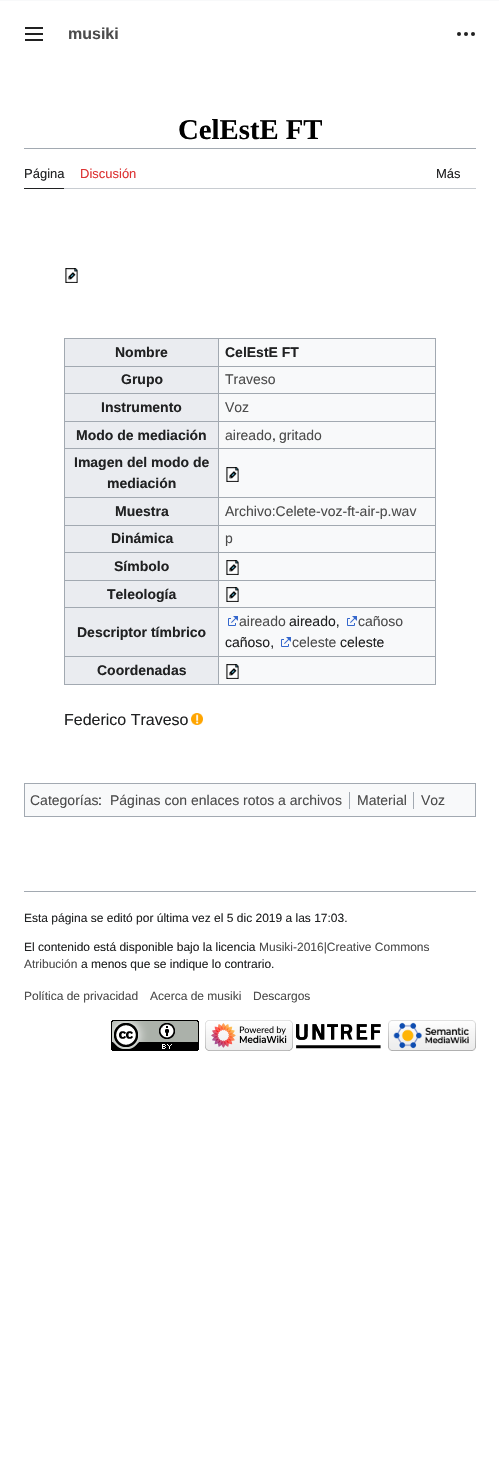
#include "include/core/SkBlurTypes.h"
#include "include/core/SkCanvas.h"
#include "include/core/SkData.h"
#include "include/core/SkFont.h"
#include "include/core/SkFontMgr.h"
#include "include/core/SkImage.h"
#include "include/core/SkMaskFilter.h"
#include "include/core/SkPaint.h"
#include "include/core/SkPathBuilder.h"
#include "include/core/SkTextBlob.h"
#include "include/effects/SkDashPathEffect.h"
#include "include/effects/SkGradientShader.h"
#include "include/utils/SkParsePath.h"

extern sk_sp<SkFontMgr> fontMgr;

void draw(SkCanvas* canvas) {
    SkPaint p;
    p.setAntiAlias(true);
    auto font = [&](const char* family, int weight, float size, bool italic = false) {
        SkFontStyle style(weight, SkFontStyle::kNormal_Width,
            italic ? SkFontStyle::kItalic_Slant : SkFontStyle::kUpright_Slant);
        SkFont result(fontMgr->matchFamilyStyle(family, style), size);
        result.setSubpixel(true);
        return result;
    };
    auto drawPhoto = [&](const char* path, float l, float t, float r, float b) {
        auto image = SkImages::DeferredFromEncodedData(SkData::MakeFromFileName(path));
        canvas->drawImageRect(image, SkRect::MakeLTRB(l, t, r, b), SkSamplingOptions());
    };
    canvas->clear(0xFFF8F9FA);
    p.setColor(0xFFFFFFFF);
    canvas->drawRect(SkRect::MakeLTRB(0, 1, 499, 1466), p);
    drawPhoto("media/1.png", 25, 27, 43, 41);
    auto font1 = font("Liberation Sans", 700, 16);
    p.setColor(0xFF4C4C4C);
    canvas->drawString("musiki", 68, 39, font1, p);
    drawPhoto("media/2.png", 457, 32, 475, 36);
    p.setColor(0xFFA2A9B1);
    canvas->drawRect(SkRect::MakeLTRB(24, 148, 476, 149), p);
    auto font2 = font("Liberation Serif", 700, 28.75f);
    p.setColor(0xFF000000);
    canvas->drawString("CelEstE FT", 178, 139, font2, p);
    p.setColor(0xFFC8CCD1);
    canvas->drawRect(SkRect::MakeLTRB(64, 188, 476, 189), p);
    p.setColor(0xFF202122);
    canvas->drawRect(SkRect::MakeLTRB(24, 188, 64, 189), p);
    auto font3 = font("Liberation Sans", 400, 13);
    canvas->drawString("Página", 24, 178, font3, p);
    p.setColor(0xFFDD3333);
    canvas->drawString("Discusión", 80, 178, font3, p);
    p.setColor(0xFF202122);
    canvas->drawString("Más", 436, 178, font3, p);
    drawPhoto("media/3.png", 65, 268, 78, 283);
    {
        const struct { float l, t, r, b; SkColor color; } items[] = {
            {219, 339, 435, 684, 0xFFF8F9FA},
            {64, 338, 436, 339, 0xFFA2A9B1},
            {435, 338, 436, 685, 0xFFA2A9B1},
            {64, 684, 436, 685, 0xFFA2A9B1},
            {64, 338, 65, 685, 0xFFA2A9B1},
            {65, 339, 218, 366, 0xFFEAECF0},
        };
        for (auto [l, t, r, b, color] : items) {
            p.setColor(color);
            canvas->drawRect(SkRect::MakeLTRB(l, t, r, b), p);
        }
    }
    auto font4 = font("Liberation Sans", 700, 14);
    p.setColor(0xFF202122);
    canvas->drawString("Nombre", 115, 357, font4, p);
    {
        const struct { float l, t, r, b; SkColor color; } items[] = {
            {218, 366, 436, 367, 0xFFA2A9B1},
            {218, 393, 436, 394, 0xFFA2A9B1},
            {218, 421, 436, 422, 0xFFA2A9B1},
            {218, 448, 436, 449, 0xFFA2A9B1},
            {218, 497, 436, 498, 0xFFA2A9B1},
            {218, 525, 436, 526, 0xFFA2A9B1},
            {218, 552, 436, 553, 0xFFA2A9B1},
            {218, 580, 436, 581, 0xFFA2A9B1},
            {218, 607, 436, 608, 0xFFA2A9B1},
            {218, 656, 436, 657, 0xFFA2A9B1},
            {218, 656, 219, 685, 0xFFA2A9B1},
            {64, 656, 219, 657, 0xFFA2A9B1},
            {218, 607, 219, 657, 0xFFA2A9B1},
            {64, 607, 219, 608, 0xFFA2A9B1},
            {218, 580, 219, 608, 0xFFA2A9B1},
            {64, 580, 219, 581, 0xFFA2A9B1},
            {218, 552, 219, 581, 0xFFA2A9B1},
            {64, 552, 219, 553, 0xFFA2A9B1},
            {218, 525, 219, 553, 0xFFA2A9B1},
            {64, 525, 219, 526, 0xFFA2A9B1},
            {218, 497, 219, 526, 0xFFA2A9B1},
            {64, 497, 219, 498, 0xFFA2A9B1},
            {218, 448, 219, 498, 0xFFA2A9B1},
            {64, 448, 219, 449, 0xFFA2A9B1},
            {218, 421, 219, 449, 0xFFA2A9B1},
            {64, 421, 219, 422, 0xFFA2A9B1},
            {218, 393, 219, 422, 0xFFA2A9B1},
            {64, 393, 219, 394, 0xFFA2A9B1},
            {218, 366, 219, 394, 0xFFA2A9B1},
            {64, 366, 219, 367, 0xFFA2A9B1},
            {218, 338, 219, 367, 0xFFA2A9B1},
        };
        for (auto [l, t, r, b, color] : items) {
            p.setColor(color);
            canvas->drawRect(SkRect::MakeLTRB(l, t, r, b), p);
        }
    }
    p.setColor(0xFF202122);
    canvas->drawString("CelEstE FT", 225, 357, font4, p);
    p.setColor(0xFFEAECF0);
    canvas->drawRect(SkRect::MakeLTRB(65, 367, 218, 393), p);
    p.setColor(0xFF202122);
    canvas->drawString("Grupo", 121, 384, font4, p);
    auto font5 = font("Liberation Sans", 400, 14);
    p.setColor(0xFF4C4C4C);
    canvas->drawString("Traveso", 225, 384, font5, p);
    p.setColor(0xFFEAECF0);
    canvas->drawRect(SkRect::MakeLTRB(65, 394, 218, 421), p);
    p.setColor(0xFF202122);
    canvas->drawString("Instrumento", 101, 412, font4, p);
    p.setColor(0xFF4C4C4C);
    canvas->drawString("Voz", 225, 412, font5, p);
    p.setColor(0xFFEAECF0);
    canvas->drawRect(SkRect::MakeLTRB(65, 422, 218, 448), p);
    p.setColor(0xFF202122);
    canvas->drawString("Modo de mediación", 76, 440, font4, p);
    p.setColor(0xFF4C4C4C);
    canvas->drawString("aireado", 225, 440, font5, p);
    p.setColor(0xFF202122);
    canvas->drawString(",", 272, 440, font5, p);
    p.setColor(0xFF4C4C4C);
    canvas->drawString("gritado", 279, 440, font5, p);
    p.setColor(0xFFEAECF0);
    canvas->drawRect(SkRect::MakeLTRB(65, 449, 218, 497), p);
    p.setColor(0xFF202122);
    canvas->drawString("Imagen del modo de", 74, 467, font4, p);
    canvas->drawString("mediación", 107, 488, font4, p);
    drawPhoto("media/4.png", 226, 467, 239, 482);
    p.setColor(0xFFEAECF0);
    canvas->drawRect(SkRect::MakeLTRB(65, 498, 218, 525), p);
    p.setColor(0xFF202122);
    canvas->drawString("Muestra", 115, 516, font4, p);
    p.setColor(0xFF4C4C4C);
    canvas->drawString("Archivo:Celete-voz-ft-air-p.wav", 225, 516, font5, p);
    p.setColor(0xFFEAECF0);
    canvas->drawRect(SkRect::MakeLTRB(65, 526, 218, 552), p);
    p.setColor(0xFF202122);
    canvas->drawString("Dinámica", 111, 543, font4, p);
    p.setColor(0xFF4C4C4C);
    canvas->drawString("p", 225, 543, font5, p);
    p.setColor(0xFFEAECF0);
    canvas->drawRect(SkRect::MakeLTRB(65, 553, 218, 580), p);
    p.setColor(0xFF202122);
    canvas->drawString("Símbolo", 114, 571, font4, p);
    drawPhoto("media/4.png", 226, 560, 239, 575);
    p.setColor(0xFFEAECF0);
    canvas->drawRect(SkRect::MakeLTRB(65, 581, 218, 607), p);
    p.setColor(0xFF202122);
    canvas->drawString("Teleología", 107, 599, font4, p);
    drawPhoto("media/4.png", 226, 587, 239, 602);
    p.setColor(0xFFEAECF0);
    canvas->drawRect(SkRect::MakeLTRB(65, 608, 218, 656), p);
    p.setColor(0xFF202122);
    canvas->drawString("Descriptor tímbrico", 77, 637, font4, p);
    drawPhoto("media/5.png", 228, 616, 238, 626);
    p.setColor(0xFF4C4C4C);
    canvas->drawString("aireado", 239, 626, font5, p);
    p.setColor(0xFF202122);
    canvas->drawString("aireado,", 289, 626, font5, p);
    drawPhoto("media/5.png", 347, 616, 357, 626);
    p.setColor(0xFF4C4C4C);
    canvas->drawString("cañoso", 358, 626, font5, p);
    p.setColor(0xFF202122);
    canvas->drawString("cañoso,", 225, 647, font5, p);
    drawPhoto("media/5.png", 281, 637, 291, 647);
    p.setColor(0xFF4C4C4C);
    canvas->drawString("celeste", 292, 647, font5, p);
    p.setColor(0xFF202122);
    canvas->drawString("celeste", 340, 647, font5, p);
    p.setColor(0xFFEAECF0);
    canvas->drawRect(SkRect::MakeLTRB(65, 657, 218, 684), p);
    p.setColor(0xFF202122);
    canvas->drawString("Coordenadas", 97, 675, font4, p);
    drawPhoto("media/4.png", 226, 664, 239, 679);
    auto font6 = font("Liberation Sans", 400, 16);
    canvas->drawString("Federico Traveso", 64, 725, font6, p);
    drawPhoto("media/6.png", 191, 713, 203, 725);
    p.setColor(0xFFF8F9FA);
    canvas->drawRect(SkRect::MakeLTRB(24.5f, 783.5f, 475.5f, 816.5f), p);
    p.setStyle(SkPaint::kStroke_Style);
    p.setStrokeWidth(1);
    p.setColor(0xFFA2A9B1);
    canvas->drawRect(SkRect::MakeLTRB(24.5f, 783.5f, 475.5f, 816.5f), p);
    p.setStyle(SkPaint::kFill_Style);
    p.setColor(0xFF4C4C4C);
    canvas->drawString("Categorías", 30, 805, font5, p);
    p.setColor(0xFF202122);
    canvas->drawString(":", 98, 805, font5, p);
    p.setColor(0xFF4C4C4C);
    canvas->drawString("Páginas con enlaces rotos a archivos", 110, 805, font5, p);
    p.setColor(0xFFA2A9B1);
    canvas->drawRect(SkRect::MakeLTRB(349, 792, 350, 809), p);
    p.setColor(0xFF4C4C4C);
    canvas->drawString("Material", 357, 805, font5, p);
    p.setColor(0xFFA2A9B1);
    canvas->drawRect(SkRect::MakeLTRB(413, 792, 414, 809), p);
    p.setColor(0xFF4C4C4C);
    canvas->drawString("Voz", 421, 805, font5, p);
    p.setColor(0xFFA2A9B1);
    canvas->drawRect(SkRect::MakeLTRB(24, 891, 476, 892), p);
    auto font7 = font("Liberation Sans", 400, 12);
    p.setColor(0xFF202122);
    canvas->drawString("Esta página se editó por última vez el 5 dic 2019 a las 17:03.", 24, 922, font7, p);
    canvas->drawString("El contenido está disponible bajo la licencia", 24, 951, font7, p);
    p.setColor(0xFF4C4C4C);
    canvas->drawString("Musiki-2016|Creative Commons", 259, 951, font7, p);
    canvas->drawString("Atribución", 24, 968, font7, p);
    p.setColor(0xFF202122);
    canvas->drawString("a menos que se indique lo contrario.", 81, 968, font7, p);
    p.setColor(0xFF4C4C4C);
    {
        const struct { const char* s; float x, y; } items[] = {
            {"Política de privacidad", 24, 1000},
            {"Acerca de musiki", 150, 1000},
            {"Descargos", 253, 1000},
        };
        for (auto [s, x, y] : items) {
            canvas->drawString(s, x, y, font7, p);
        }
    }
    drawPhoto("media/7.png", 111, 1020, 199, 1051);
    drawPhoto("media/8.png", 205, 1020, 293, 1051);
    drawPhoto("media/9.png", 296, 1024, 381, 1049);
    drawPhoto("media/10.png", 388, 1020, 476, 1051);
}
